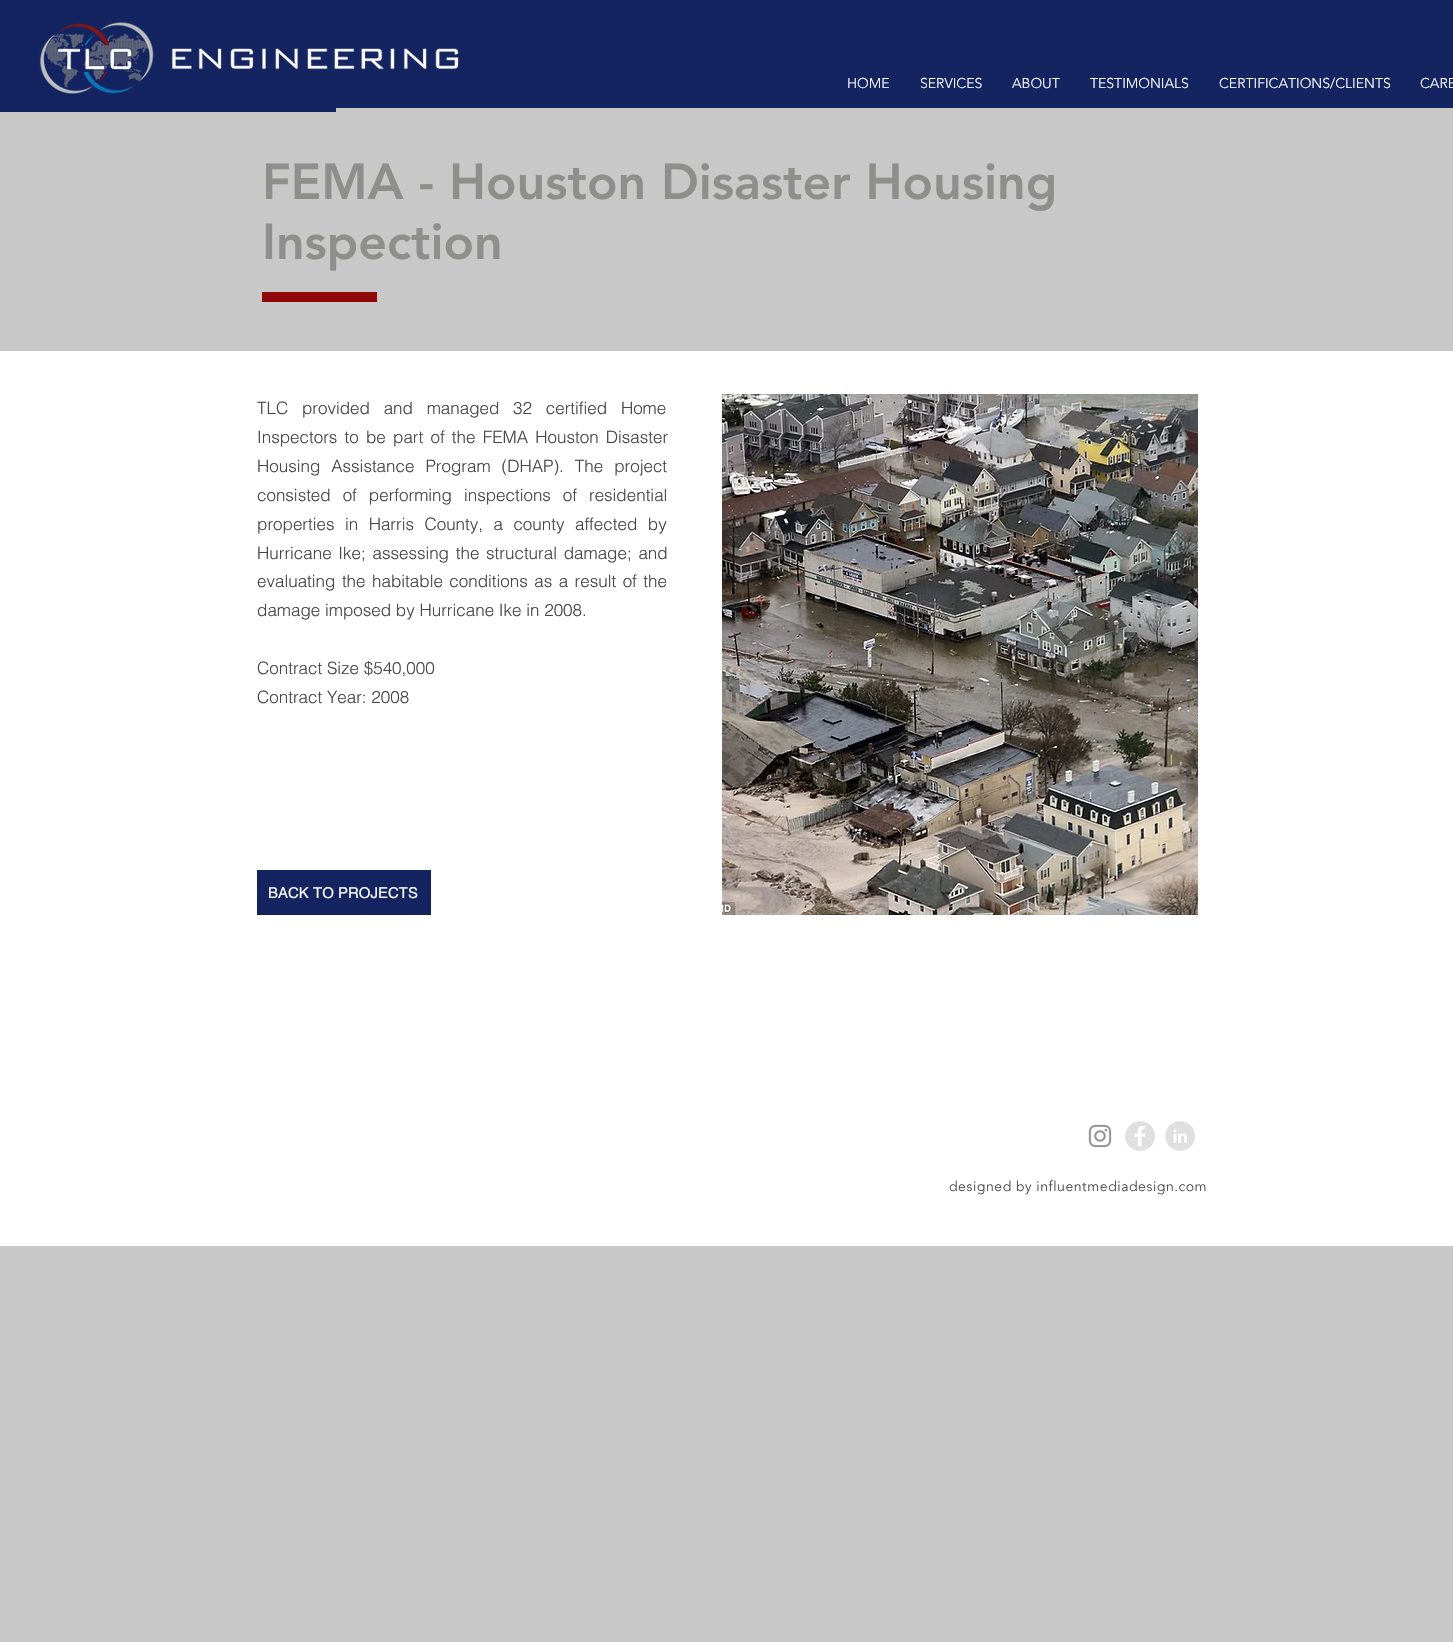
#include "include/core/SkBlurTypes.h"
#include "include/core/SkCanvas.h"
#include "include/core/SkData.h"
#include "include/core/SkFont.h"
#include "include/core/SkFontMgr.h"
#include "include/core/SkImage.h"
#include "include/core/SkMaskFilter.h"
#include "include/core/SkPaint.h"
#include "include/core/SkPathBuilder.h"
#include "include/core/SkTextBlob.h"
#include "include/effects/SkDashPathEffect.h"
#include "include/effects/SkGradientShader.h"
#include "include/utils/SkParsePath.h"

extern sk_sp<SkFontMgr> fontMgr;

void draw(SkCanvas* canvas) {
    SkPaint p;
    p.setAntiAlias(true);
    auto font = [&](const char* family, int weight, float size, bool italic = false) {
        SkFontStyle style(weight, SkFontStyle::kNormal_Width,
            italic ? SkFontStyle::kItalic_Slant : SkFontStyle::kUpright_Slant);
        SkFont result(fontMgr->matchFamilyStyle(family, style), size);
        result.setSubpixel(true);
        return result;
    };
    auto drawTracked = [&](const char* s, float x, float y, const SkFont& font, const SkPaint& ink, float letter, float word) {
        std::vector<SkGlyphID> glyphs(font.countText(s, strlen(s), SkTextEncoding::kUTF8));
        std::vector<float> xs(glyphs.size());
        font.textToGlyphs(s, strlen(s), SkTextEncoding::kUTF8, glyphs);
        font.getXPos(glyphs, xs, x);
        float extra = 0;
        for (size_t i = 0; i < glyphs.size(); i++) {
            xs[i] += extra;
            extra += letter + word * (glyphs[i] == font.unicharToGlyph(' '));
        }
        canvas->drawTextBlob(SkTextBlob::MakeFromPosHGlyphs(glyphs, xs, y, font), 0, 0, ink);
    };
    auto drawPhoto = [&](const char* path, float l, float t, float r, float b) {
        auto image = SkImages::DeferredFromEncodedData(SkData::MakeFromFileName(path));
        canvas->drawImageRect(image, SkRect::MakeLTRB(l, t, r, b), SkSamplingOptions());
    };
    canvas->clear(0xFFC8C8C8);
    p.setColor(0xFF132460);
    canvas->drawRect(SkRect::MakeLTRB(0, 0, 336, 112), p);
    canvas->drawRect(SkRect::MakeLTRB(336, 0, 1453, 108), p);
    drawPhoto("media/1.png", 38, 22, 459, 94);
    auto font1 = font("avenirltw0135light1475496", 300, 14);
    p.setColor(0xFFFFFFFF);
    {
        const struct { const char* s; float x, y; } items[] = {
            {"HOME", 847, 88},
            {"SERVICES", 920, 88},
            {"ABOUT", 1012, 88},
            {"TESTIMONIALS", 1090, 88},
            {"CERTIFICATIONS/CLIENTS", 1219, 88},
            {"CARE", 1420, 88},
        };
        for (auto [s, x, y] : items) {
            canvas->drawString(s, x, y, font1, p);
        }
    }
    auto font2 = font("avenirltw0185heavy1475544", 900, 50);
    p.setColor(0xFF8E8E8B);
    canvas->drawString("FEMA - Houston Disaster Housing", 262, 199, font2, p);
    canvas->drawString("Inspection", 262, 259, font2, p);
    p.setColor(0xFF910808);
    canvas->drawRect(SkRect::MakeLTRB(262, 292, 377, 302), p);
    p.setColor(0xFFFFFFFF);
    canvas->drawRect(SkRect::MakeLTRB(0, 351, 1453, 1246), p);
    auto font3 = font("helvetica", 300, 17);
    p.setColor(0xFF454545);
    drawTracked("TLC provided and managed 32 certified Home", 257, 414, font3, p, 0, 9);
    drawTracked("Inspectors to be part of the FEMA Houston Disaster", 257, 443, font3, p, 0, 2.5f);
    drawTracked("Housing Assistance Program (DHAP). The project", 257, 472, font3, p, 0, 6.25f);
    drawTracked("consisted of performing inspections of residential", 257, 501, font3, p, 0, 7.25f);
    drawTracked("properties in Harris County, a county affected by", 257, 530, font3, p, 0, 5.75f);
    drawTracked("Hurricane Ike; assessing the structural damage; and", 257, 559, font3, p, 0, 2);
    drawTracked("evaluating the habitable conditions as a result of the", 257, 587, font3, p, 0, 1.75f);
    {
        const struct { const char* s; float x, y; } items[] = {
            {"damage imposed by Hurricane Ike in 2008.", 257, 616},
            {"Contract Size $540,000", 257, 674},
            {"Contract Year: 2008", 257, 703},
        };
        for (auto [s, x, y] : items) {
            canvas->drawString(s, x, y, font3, p);
        }
    }
    drawPhoto("media/2.png", 722, 394, 1198, 915);
    auto font4 = font("Liberation Sans", 400, 12);
    p.setColor(0xFF6C6F70);
    canvas->drawString("1/1", 1171, 414, font4, p);
    p.setColor(0xFF132460);
    canvas->drawRect(SkRect::MakeLTRB(257, 870, 431, 915), p);
    auto font5 = font("helvetica", 400, 15);
    p.setColor(0xFFFFFFFF);
    canvas->drawString("BACK TO PROJECTS", 268, 898, font5, p);
    drawPhoto("media/3.png", 1088, 1124, 1112, 1148);
    drawPhoto("media/4.png", 1125, 1121, 1155, 1151);
    drawPhoto("media/5.png", 1165, 1121, 1195, 1151);
    p.setColor(0xFF454545);
    drawTracked("designed by influentmediadesign.com", 949, 1191, font1, p, 0.55f, 0);
}
